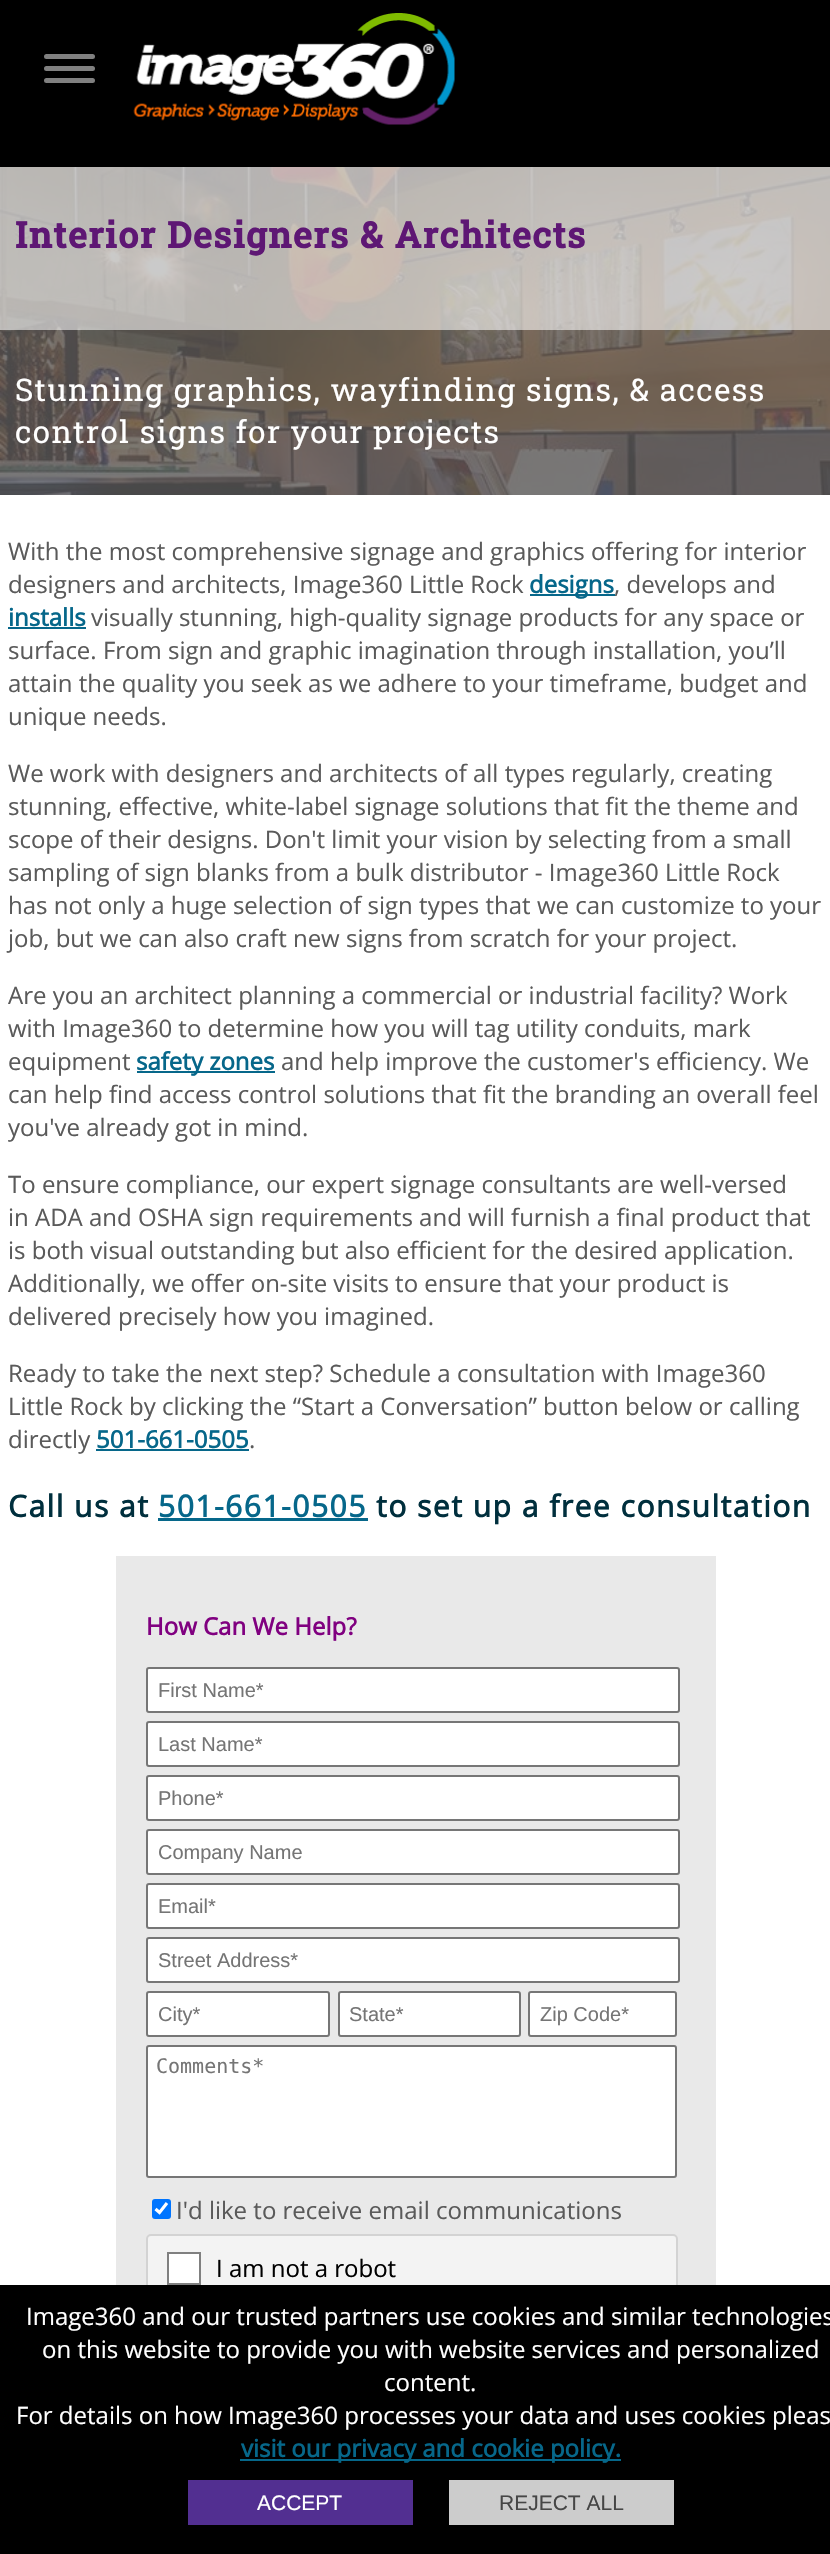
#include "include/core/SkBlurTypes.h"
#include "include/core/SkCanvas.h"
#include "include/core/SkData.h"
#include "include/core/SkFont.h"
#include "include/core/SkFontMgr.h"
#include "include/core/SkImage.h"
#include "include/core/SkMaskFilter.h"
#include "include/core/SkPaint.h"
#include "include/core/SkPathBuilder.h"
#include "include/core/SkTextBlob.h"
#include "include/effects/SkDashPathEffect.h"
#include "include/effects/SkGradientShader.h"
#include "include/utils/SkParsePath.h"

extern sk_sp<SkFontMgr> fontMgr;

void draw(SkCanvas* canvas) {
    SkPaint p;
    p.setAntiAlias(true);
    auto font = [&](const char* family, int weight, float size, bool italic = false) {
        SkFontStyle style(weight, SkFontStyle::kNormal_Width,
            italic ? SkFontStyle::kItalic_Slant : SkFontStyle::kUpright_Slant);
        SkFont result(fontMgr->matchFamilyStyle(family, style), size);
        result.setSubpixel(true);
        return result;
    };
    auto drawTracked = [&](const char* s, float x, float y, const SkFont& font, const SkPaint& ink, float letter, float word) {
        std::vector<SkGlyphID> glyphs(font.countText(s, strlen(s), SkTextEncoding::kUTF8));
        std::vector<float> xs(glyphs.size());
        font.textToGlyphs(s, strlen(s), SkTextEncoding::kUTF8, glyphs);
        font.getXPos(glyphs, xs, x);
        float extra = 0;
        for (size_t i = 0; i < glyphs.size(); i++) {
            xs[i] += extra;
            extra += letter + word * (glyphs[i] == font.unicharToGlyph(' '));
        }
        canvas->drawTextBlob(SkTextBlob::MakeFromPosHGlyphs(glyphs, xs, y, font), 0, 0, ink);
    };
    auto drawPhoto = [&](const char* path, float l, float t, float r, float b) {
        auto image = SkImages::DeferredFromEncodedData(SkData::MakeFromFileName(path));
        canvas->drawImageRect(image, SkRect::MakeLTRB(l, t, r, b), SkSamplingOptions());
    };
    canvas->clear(0xFFFFFFFF);
    p.setColor(0xFF000000);
    canvas->drawRect(SkRect::MakeLTRB(0, 0, 830, 167), p);
    p.setColor(0xFF808080);
    canvas->drawRoundRect(SkRect::MakeLTRB(45, 55, 94, 58), 1.5f, 1.5f, p);
    p.setStyle(SkPaint::kStroke_Style);
    p.setStrokeWidth(2);
    canvas->drawRoundRect(SkRect::MakeLTRB(45, 55, 94, 58), 1.5f, 1.5f, p);
    p.setStyle(SkPaint::kFill_Style);
    canvas->drawRoundRect(SkRect::MakeLTRB(45, 67, 94, 70), 1.5f, 1.5f, p);
    p.setStyle(SkPaint::kStroke_Style);
    canvas->drawRoundRect(SkRect::MakeLTRB(45, 67, 94, 70), 1.5f, 1.5f, p);
    p.setStyle(SkPaint::kFill_Style);
    canvas->drawRoundRect(SkRect::MakeLTRB(45, 79, 94, 82), 1.5f, 1.5f, p);
    p.setStyle(SkPaint::kStroke_Style);
    canvas->drawRoundRect(SkRect::MakeLTRB(45, 79, 94, 82), 1.5f, 1.5f, p);
    drawPhoto("media/1.png", 133, 13, 455, 125);
    drawPhoto("media/2.png", 0, 167, 830, 495);
    p.setStyle(SkPaint::kFill_Style);
    p.setColor(0xE6C4C4C4);
    canvas->drawRect(SkRect::MakeLTRB(0, 167, 830, 330), p);
    auto font1 = font("Roboto Slab", 700, 36);
    p.setColor(0xFF5E1774);
    drawTracked("Interior Designers & Architects", 15, 248, font1, p, 1.5f, 0);
    p.setColor(0xCC5A5A5A);
    canvas->drawRect(SkRect::MakeLTRB(0, 330, 830, 495), p);
    auto font2 = font("Roboto Slab", 400, 31.2f);
    p.setColor(0xFFFFFFFF);
    drawTracked("Stunning graphics, wayfinding signs, & access", 15, 401, font2, p, 1.5f, 0);
    drawTracked("control signs for your projects", 15, 443, font2, p, 1.5f, 0);
    auto font3 = font("Open Sans", 400, 24);
    p.setColor(0xFF5A5A5A);
    canvas->drawString("With the most comprehensive signage and graphics offering for interior", 8, 560, font3, p);
    canvas->drawString("designers and architects, Image360 Little Rock", 8, 593, font3, p);
    p.setColor(0xFF06678A);
    canvas->drawRect(SkRect::MakeLTRB(530, 594, 615, 596), p);
    auto font4 = font("Open Sans", 700, 24);
    canvas->drawString("designs", 529, 593, font4, p);
    p.setColor(0xFF5A5A5A);
    canvas->drawString(", develops and", 614, 593, font3, p);
    p.setColor(0xFF06678A);
    canvas->drawString("installs", 8, 626, font4, p);
    canvas->drawRect(SkRect::MakeLTRB(8, 627, 86, 629), p);
    p.setColor(0xFF5A5A5A);
    {
        const struct { const char* s; float x, y; } items[] = {
            {"visually stunning, high-quality signage products for any space or", 91, 626},
            {"surface. From sign and graphic imagination through installation, you’ll", 8, 659},
            {"attain the quality you seek as we adhere to your timeframe, budget and", 8, 692},
            {"unique needs.", 8, 725},
            {"We work with designers and architects of all types regularly, creating", 8, 782},
            {"stunning, effective, white-label signage solutions that fit the theme and", 8, 815},
            {"scope of their designs. Don't limit your vision by selecting from a small", 8, 848},
            {"sampling of sign blanks from a bulk distributor - Image360 Little Rock", 8, 881},
            {"has not only a huge selection of sign types that we can customize to your", 8, 914},
            {"job, but we can also craft new signs from scratch for your project.", 8, 947},
            {"Are you an architect planning a commercial or industrial facility? Work", 8, 1004},
            {"with Image360 to determine how you will tag utility conduits, mark", 8, 1037},
            {"equipment", 8, 1070},
        };
        for (auto [s, x, y] : items) {
            canvas->drawString(s, x, y, font3, p);
        }
    }
    p.setColor(0xFF06678A);
    canvas->drawRect(SkRect::MakeLTRB(137, 1071, 275, 1073), p);
    canvas->drawString("safety zones", 136, 1070, font4, p);
    p.setColor(0xFF5A5A5A);
    {
        const struct { const char* s; float x, y; } items[] = {
            {"and help improve the customer's efficiency. We", 281, 1070},
            {"can help find access control solutions that fit the branding an overall feel", 8, 1103},
            {"you've already got in mind.", 8, 1136},
            {"To ensure compliance, our expert signage consultants are well-versed", 8, 1193},
            {"in ADA and OSHA sign requirements and will furnish a final product that", 8, 1226},
            {"is both visual outstanding but also efficient for the desired application.", 8, 1259},
            {"Additionally, we offer on-site visits to ensure that your product is", 8, 1292},
            {"delivered precisely how you imagined.", 8, 1325},
            {"Ready to take the next step? Schedule a consultation with Image360", 8, 1382},
            {"Little Rock by clicking the “Start a Conversation” button below or calling", 8, 1415},
            {"directly", 8, 1448},
        };
        for (auto [s, x, y] : items) {
            canvas->drawString(s, x, y, font3, p);
        }
    }
    p.setColor(0xFF06678A);
    canvas->drawString("501-661-0505", 96, 1448, font4, p);
    canvas->drawRect(SkRect::MakeLTRB(96, 1449, 249, 1451), p);
    p.setColor(0xFF5A5A5A);
    canvas->drawString(".", 249, 1448, font3, p);
    auto font5 = font("Open Sans", 700, 30);
    p.setColor(0xFF002F3D);
    drawTracked("Call us at", 8, 1517, font5, p, 1.5f, 0);
    p.setColor(0xFF06678A);
    drawTracked("501-661-0505", 158, 1517, font5, p, 1.5f, 0);
    canvas->drawRect(SkRect::MakeLTRB(158, 1518, 368, 1521), p);
    p.setColor(0xFF002F3D);
    drawTracked("to set up a free consultation", 376, 1517, font5, p, 1.5f, 0);
    p.setColor(0xFFE9E9E9);
    canvas->drawRect(SkRect::MakeLTRB(116, 1556, 716, 2285), p);
    p.setColor(0xFF800080);
    canvas->drawString("How Can We Help?", 146, 1635, font4, p);
    p.setColor(0xFFFFFFFF);
    canvas->drawRoundRect(SkRect::MakeLTRB(147, 1668, 679, 1712), 2, 2, p);
    p.setStyle(SkPaint::kStroke_Style);
    p.setColor(0xFF767676);
    canvas->drawRoundRect(SkRect::MakeLTRB(147, 1668, 679, 1712), 2, 2, p);
    auto font6 = font("Liberation Sans", 400, 20);
    p.setStyle(SkPaint::kFill_Style);
    p.setColor(0xFF757575);
    canvas->drawString("First Name*", 158, 1697, font6, p);
    p.setColor(0xFFFFFFFF);
    canvas->drawRoundRect(SkRect::MakeLTRB(147, 1722, 679, 1766), 2, 2, p);
    p.setStyle(SkPaint::kStroke_Style);
    p.setColor(0xFF767676);
    canvas->drawRoundRect(SkRect::MakeLTRB(147, 1722, 679, 1766), 2, 2, p);
    p.setStyle(SkPaint::kFill_Style);
    p.setColor(0xFF757575);
    canvas->drawString("Last Name*", 158, 1751, font6, p);
    p.setColor(0xFFFFFFFF);
    canvas->drawRoundRect(SkRect::MakeLTRB(147, 1776, 679, 1820), 2, 2, p);
    p.setStyle(SkPaint::kStroke_Style);
    p.setColor(0xFF767676);
    canvas->drawRoundRect(SkRect::MakeLTRB(147, 1776, 679, 1820), 2, 2, p);
    p.setStyle(SkPaint::kFill_Style);
    p.setColor(0xFF757575);
    canvas->drawString("Phone*", 158, 1805, font6, p);
    p.setColor(0xFFFFFFFF);
    canvas->drawRoundRect(SkRect::MakeLTRB(147, 1830, 679, 1874), 2, 2, p);
    p.setStyle(SkPaint::kStroke_Style);
    p.setColor(0xFF767676);
    canvas->drawRoundRect(SkRect::MakeLTRB(147, 1830, 679, 1874), 2, 2, p);
    canvas->save();
    canvas->clipRect(SkRect::MakeLTRB(158, 1841, 668, 1863));
    p.setStyle(SkPaint::kFill_Style);
    p.setColor(0xFF757575);
    canvas->drawString("Company Name", 158, 1859, font6, p);
    canvas->restore();
    p.setColor(0xFFFFFFFF);
    canvas->drawRoundRect(SkRect::MakeLTRB(147, 1884, 679, 1928), 2, 2, p);
    p.setStyle(SkPaint::kStroke_Style);
    p.setColor(0xFF767676);
    canvas->drawRoundRect(SkRect::MakeLTRB(147, 1884, 679, 1928), 2, 2, p);
    p.setStyle(SkPaint::kFill_Style);
    p.setColor(0xFF757575);
    canvas->drawString("Email*", 158, 1913, font6, p);
    p.setColor(0xFFFFFFFF);
    canvas->drawRoundRect(SkRect::MakeLTRB(147, 1938, 679, 1982), 2, 2, p);
    p.setStyle(SkPaint::kStroke_Style);
    p.setColor(0xFF767676);
    canvas->drawRoundRect(SkRect::MakeLTRB(147, 1938, 679, 1982), 2, 2, p);
    p.setStyle(SkPaint::kFill_Style);
    p.setColor(0xFF757575);
    canvas->drawString("Street Address*", 158, 1967, font6, p);
    p.setColor(0xFFFFFFFF);
    canvas->drawRoundRect(SkRect::MakeLTRB(147, 1992, 329, 2036), 2, 2, p);
    p.setStyle(SkPaint::kStroke_Style);
    p.setColor(0xFF767676);
    canvas->drawRoundRect(SkRect::MakeLTRB(147, 1992, 329, 2036), 2, 2, p);
    p.setStyle(SkPaint::kFill_Style);
    p.setColor(0xFF757575);
    canvas->drawString("City*", 158, 2021, font6, p);
    p.setColor(0xFFFFFFFF);
    canvas->drawRoundRect(SkRect::MakeLTRB(339, 1992, 520, 2036), 2, 2, p);
    p.setStyle(SkPaint::kStroke_Style);
    p.setColor(0xFF767676);
    canvas->drawRoundRect(SkRect::MakeLTRB(339, 1992, 520, 2036), 2, 2, p);
    p.setStyle(SkPaint::kFill_Style);
    p.setColor(0xFF757575);
    canvas->drawString("State*", 349, 2021, font6, p);
    p.setColor(0xFFFFFFFF);
    canvas->drawRoundRect(SkRect::MakeLTRB(529, 1992, 676, 2036), 2, 2, p);
    p.setStyle(SkPaint::kStroke_Style);
    p.setColor(0xFF767676);
    canvas->drawRoundRect(SkRect::MakeLTRB(529, 1992, 676, 2036), 2, 2, p);
    p.setStyle(SkPaint::kFill_Style);
    p.setColor(0xFF757575);
    canvas->drawString("Zip Code*", 540, 2021, font6, p);
    p.setColor(0xFFFFFFFF);
    canvas->drawRoundRect(SkRect::MakeLTRB(147, 2046, 676, 2177), 2, 2, p);
    p.setStyle(SkPaint::kStroke_Style);
    p.setColor(0xFF767676);
    canvas->drawRoundRect(SkRect::MakeLTRB(147, 2046, 676, 2177), 2, 2, p);
    auto font7 = font("DejaVu Sans Mono", 400, 20);
    p.setStyle(SkPaint::kFill_Style);
    p.setColor(0xFF757575);
    canvas->drawString("Comments*", 156, 2073, font7, p);
    p.setColor(0xFF0075FF);
    canvas->drawRoundRect(SkRect::MakeLTRB(152, 2199, 171, 2219), 3, 3, p);
    p.setStyle(SkPaint::kStroke_Style);
    p.setStrokeWidth(3.1f);
    p.setColor(0xFFFFFFFF);
    canvas->drawPath(SkPathBuilder().moveTo(155.5f, 2209).lineTo(159.5f, 2212.5f).lineTo(167, 2203).detach(), p);
    p.setStyle(SkPaint::kFill_Style);
    p.setColor(0xFF5A5A5A);
    canvas->drawString("I'd like to receive email communications", 176, 2219, font3, p);
    p.setColor(0xFFF3F3F3);
    canvas->drawRoundRect(SkRect::MakeLTRB(147, 2235, 677, 2302), 4, 4, p);
    p.setStyle(SkPaint::kStroke_Style);
    p.setStrokeWidth(2);
    p.setColor(0xFFD3D3D3);
    canvas->drawRoundRect(SkRect::MakeLTRB(147, 2235, 677, 2302), 4, 4, p);
    p.setStyle(SkPaint::kFill_Style);
    p.setColor(0xFFFFFFFF);
    canvas->drawRect(SkRect::MakeLTRB(168, 2253, 200, 2284), p);
    p.setStyle(SkPaint::kStroke_Style);
    p.setColor(0xFF808080);
    canvas->drawRect(SkRect::MakeLTRB(168, 2253, 200, 2284), p);
    p.setStyle(SkPaint::kFill_Style);
    p.setColor(0xFF000000);
    canvas->drawString("I am not a robot", 216, 2277, font3, p);
    canvas->drawRect(SkRect::MakeLTRB(0, 2285, 830, 2554), p);
    p.setColor(0xFFFFFFFF);
    {
        const struct { const char* s; float x, y; } items[] = {
            {"Image360 and our trusted partners use cookies and similar technologies", 26, 2325},
            {"on this website to provide you with website services and personalized", 42, 2358},
            {"content.", 384, 2391},
            {"For details on how Image360 processes your data and uses cookies pleas", 16, 2424},
        };
        for (auto [s, x, y] : items) {
            canvas->drawString(s, x, y, font3, p);
        }
    }
    p.setColor(0xFF06678A);
    canvas->drawRect(SkRect::MakeLTRB(240, 2459, 621, 2461), p);
    canvas->drawString("visit our privacy and cookie policy.", 241, 2457, font4, p);
    p.setColor(0xFF522F91);
    canvas->drawRect(SkRect::MakeLTRB(188, 2480, 413, 2525), p);
    auto font8 = font("Liberation Sans", 400, 21);
    p.setColor(0xFFFFFFFF);
    canvas->drawString("ACCEPT", 257, 2510, font8, p);
    p.setColor(0xFFCCCCCC);
    canvas->drawRect(SkRect::MakeLTRB(449, 2480, 674, 2525), p);
    p.setColor(0xFF464646);
    canvas->drawString("REJECT ALL", 499, 2510, font8, p);
}
